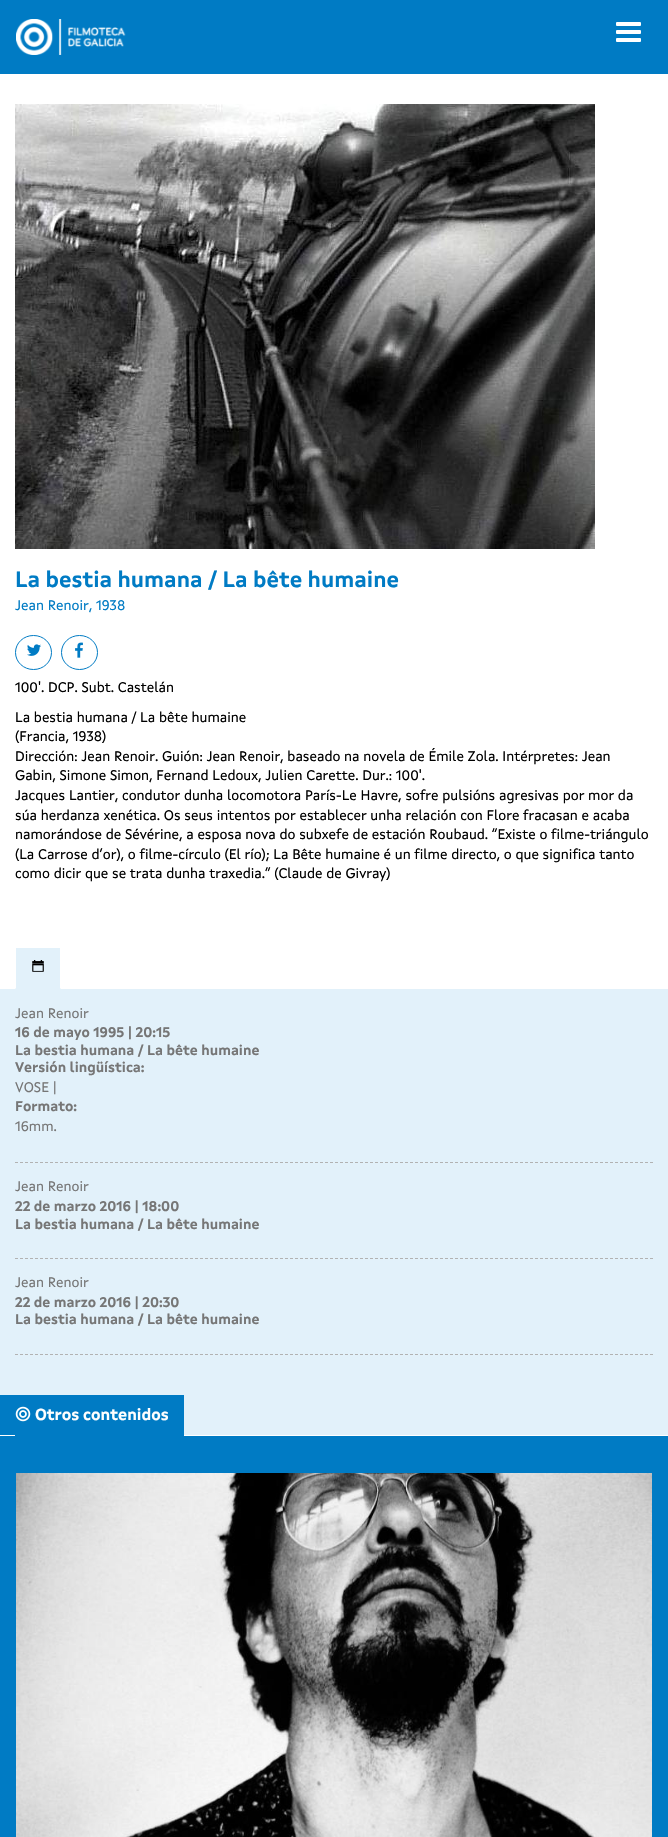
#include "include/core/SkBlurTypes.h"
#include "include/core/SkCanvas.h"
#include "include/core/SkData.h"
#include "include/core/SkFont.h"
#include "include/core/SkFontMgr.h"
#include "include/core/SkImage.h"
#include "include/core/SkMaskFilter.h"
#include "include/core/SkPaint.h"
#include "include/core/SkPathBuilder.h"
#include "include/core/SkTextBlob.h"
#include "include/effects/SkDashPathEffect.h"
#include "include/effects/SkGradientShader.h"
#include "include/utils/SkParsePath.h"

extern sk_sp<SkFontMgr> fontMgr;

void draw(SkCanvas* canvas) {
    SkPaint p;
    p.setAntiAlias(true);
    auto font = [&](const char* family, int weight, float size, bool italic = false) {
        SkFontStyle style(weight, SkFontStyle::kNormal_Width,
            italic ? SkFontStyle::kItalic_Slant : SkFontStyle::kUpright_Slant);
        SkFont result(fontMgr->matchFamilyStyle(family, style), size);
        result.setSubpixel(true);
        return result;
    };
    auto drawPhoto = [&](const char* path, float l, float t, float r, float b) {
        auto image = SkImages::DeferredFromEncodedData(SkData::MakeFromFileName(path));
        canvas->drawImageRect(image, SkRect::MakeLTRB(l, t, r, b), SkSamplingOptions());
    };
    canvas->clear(0xFFFFFFFF);
    p.setColor(0xFF007BC4);
    canvas->drawRect(SkRect::MakeLTRB(0, 0, 668, 74), p);
    drawPhoto("media/1.png", 16, 19, 126, 55);
    p.setColor(0xFFFFFFFF);
    canvas->drawRoundRect(SkRect::MakeLTRB(616, 22, 641, 26), 1, 1, p);
    canvas->drawRoundRect(SkRect::MakeLTRB(616, 30, 641, 34), 1, 1, p);
    canvas->drawRoundRect(SkRect::MakeLTRB(616, 38, 641, 42), 1, 1, p);
    drawPhoto("media/2.png", 15, 104, 595, 549);
    auto font1 = font("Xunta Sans", 700, 22);
    p.setColor(0xFF007BC4);
    canvas->drawString("La bestia humana / La bête humaine", 15, 587, font1, p);
    auto font2 = font("Xunta Sans", 400, 14);
    canvas->drawString("Jean Renoir, 1938", 15, 610, font2, p);
    p.setStyle(SkPaint::kStroke_Style);
    p.setStrokeWidth(1);
    canvas->drawPath(SkPathBuilder().moveTo(33.5f, 635.5f).cubicTo(43.5f, 635.5f, 51.5f, 643, 51.5f, 652.5f).cubicTo(51.5f, 662, 43.5f, 669.5f, 33.5f, 669.5f).cubicTo(23.5f, 669.5f, 15.5f, 662, 15.5f, 652.5f).cubicTo(15.5f, 643, 23.5f, 635.5f, 33.5f, 635.5f).close().detach(), p);
    drawPhoto("media/3.png", 27, 644, 41, 656);
    canvas->drawPath(SkPathBuilder().moveTo(79.5f, 635.5f).cubicTo(89.5f, 635.5f, 97.5f, 643, 97.5f, 652.5f).cubicTo(97.5f, 662, 89.5f, 669.5f, 79.5f, 669.5f).cubicTo(69.5f, 669.5f, 61.5f, 662, 61.5f, 652.5f).cubicTo(61.5f, 643, 69.5f, 635.5f, 79.5f, 635.5f).close().detach(), p);
    drawPhoto("media/4.png", 75, 642, 83, 658);
    p.setStyle(SkPaint::kFill_Style);
    p.setColor(0xFF000000);
    {
        const struct { const char* s; float x, y; } items[] = {
            {"100'. DCP. Subt. Castelán", 15, 692},
            {"La bestia humana / La bête humaine", 15, 722},
            {"(Francia, 1938)", 15, 741},
            {"Dirección: Jean Renoir. Guión: Jean Renoir, baseado na novela de Émile Zola. Intérpretes: Jean", 15, 761},
            {"Gabin, Simone Simon, Fernand Ledoux, Julien Carette. Dur.: 100'.", 15, 780},
            {"Jacques Lantier, condutor dunha locomotora París-Le Havre, sofre pulsións agresivas por mor da", 15, 800},
            {"súa herdanza xenética. Os seus intentos por establecer unha relación con Flore fracasan e acaba", 15, 820},
            {"namorándose de Sévérine, a esposa nova do subxefe de estación Roubaud. “Existe o filme-triángulo", 15, 839},
            {"(La Carrose d’or), o filme-círculo (El río); La Bête humaine é un filme directo, o que significa tanto", 15, 859},
            {"como dicir que se trata dunha traxedia.” (Claude de Givray)", 15, 878},
        };
        for (auto [s, x, y] : items) {
            canvas->drawString(s, x, y, font2, p);
        }
    }
    p.setColor(0xFFE2F1FA);
    canvas->drawRect(SkRect::MakeLTRB(15, 948, 61, 989), p);
    p.setColor(0xFFFFFFFF);
    canvas->drawPath(SkPathBuilder().moveTo(61, 947).lineTo(61, 989).lineTo(60, 988).lineTo(60, 948).close().moveTo(15, 989).lineTo(15, 947).lineTo(16, 948).lineTo(16, 988).close().detach(), p);
    drawPhoto("media/5.png", 32, 960, 44, 972);
    p.setColor(0xFFE2F1FA);
    canvas->drawRect(SkRect::MakeLTRB(0, 989, 668, 1435), p);
    p.setStyle(SkPaint::kStroke_Style);
    p.setColor(0xFFB2B2B2);
    p.setPathEffect(SkDashPathEffect::Make({{3, 2}}, 0));
    canvas->drawPath(SkPathBuilder().moveTo(15, 1162.5f).lineTo(653, 1162.5f).detach(), p);
    p.setPathEffect(nullptr);
    p.setStyle(SkPaint::kFill_Style);
    p.setColor(0xFF767676);
    canvas->drawString("Jean Renoir", 15, 1018, font2, p);
    auto font3 = font("Xunta Sans", 700, 14);
    {
        const struct { const char* s; float x, y; } items[] = {
            {"16 de mayo 1995 | 20:15", 15, 1037},
            {"La bestia humana / La bête humaine", 15, 1055},
            {"Versión lingüística:", 15, 1072},
        };
        for (auto [s, x, y] : items) {
            canvas->drawString(s, x, y, font3, p);
        }
    }
    canvas->drawString("VOSE |", 15, 1092, font2, p);
    canvas->drawString("Formato:", 15, 1111, font3, p);
    canvas->drawString("16mm.", 15, 1131, font2, p);
    p.setStyle(SkPaint::kStroke_Style);
    p.setColor(0xFFB2B2B2);
    p.setPathEffect(SkDashPathEffect::Make({{3, 2}}, 0));
    canvas->drawPath(SkPathBuilder().moveTo(15, 1258.5f).lineTo(653, 1258.5f).detach(), p);
    p.setPathEffect(nullptr);
    p.setStyle(SkPaint::kFill_Style);
    p.setColor(0xFF767676);
    canvas->drawString("Jean Renoir", 15, 1191, font2, p);
    canvas->drawString("22 de marzo 2016 | 18:00", 15, 1211, font3, p);
    canvas->drawString("La bestia humana / La bête humaine", 15, 1229, font3, p);
    p.setStyle(SkPaint::kStroke_Style);
    p.setColor(0xFFB2B2B2);
    p.setPathEffect(SkDashPathEffect::Make({{3, 2}}, 0));
    canvas->drawPath(SkPathBuilder().moveTo(15, 1354.5f).lineTo(653, 1354.5f).detach(), p);
    p.setPathEffect(nullptr);
    p.setStyle(SkPaint::kFill_Style);
    p.setColor(0xFF767676);
    canvas->drawString("Jean Renoir", 15, 1287, font2, p);
    canvas->drawString("22 de marzo 2016 | 20:30", 15, 1307, font3, p);
    canvas->drawString("La bestia humana / La bête humaine", 15, 1324, font3, p);
    p.setColor(0xFF007BC4);
    canvas->drawRect(SkRect::MakeLTRB(15, 1395, 184, 1436), p);
    canvas->drawRect(SkRect::MakeLTRB(0, 1395, 15, 1435), p);
    drawPhoto("media/6.png", 15, 1406, 31, 1422);
    auto font4 = font("Xunta Sans", 700, 16);
    p.setColor(0xFFFFFFFF);
    canvas->drawString("Otros contenidos", 35, 1420, font4, p);
    p.setColor(0xFF007BC4);
    canvas->drawRect(SkRect::MakeLTRB(0, 1436, 668, 1837), p);
    drawPhoto("media/7.png", 16, 1473, 652, 1837);
}
